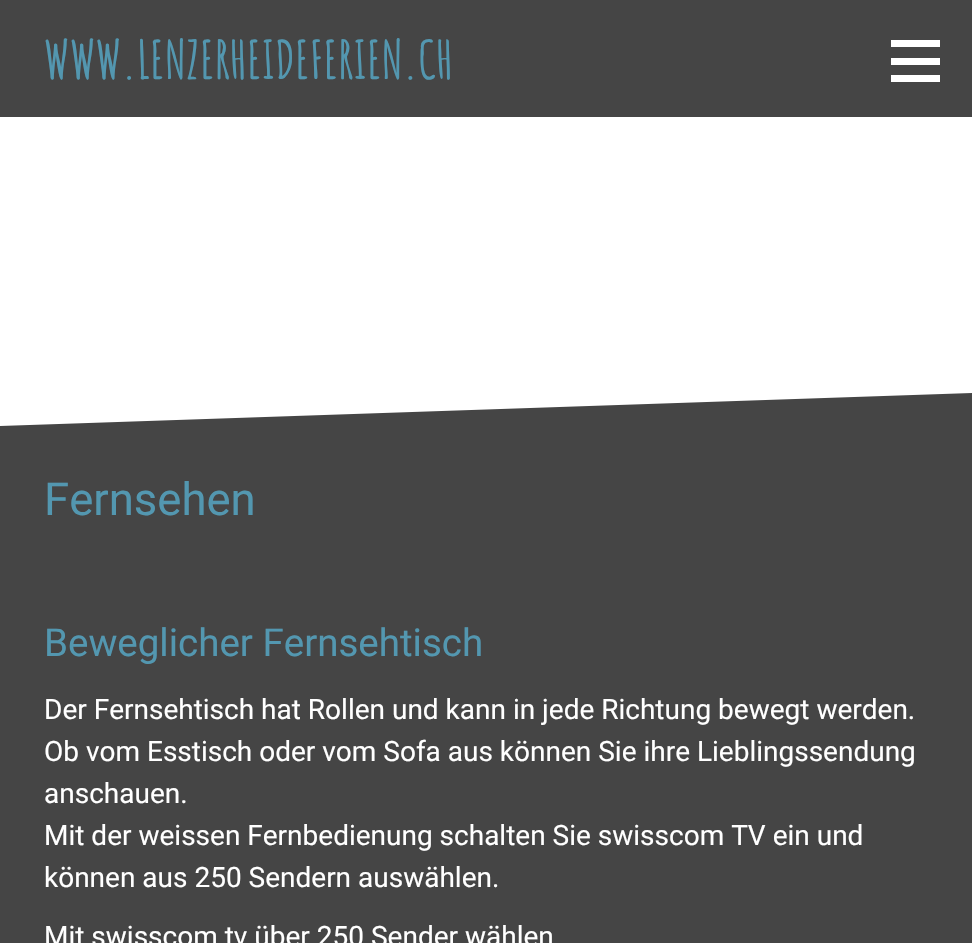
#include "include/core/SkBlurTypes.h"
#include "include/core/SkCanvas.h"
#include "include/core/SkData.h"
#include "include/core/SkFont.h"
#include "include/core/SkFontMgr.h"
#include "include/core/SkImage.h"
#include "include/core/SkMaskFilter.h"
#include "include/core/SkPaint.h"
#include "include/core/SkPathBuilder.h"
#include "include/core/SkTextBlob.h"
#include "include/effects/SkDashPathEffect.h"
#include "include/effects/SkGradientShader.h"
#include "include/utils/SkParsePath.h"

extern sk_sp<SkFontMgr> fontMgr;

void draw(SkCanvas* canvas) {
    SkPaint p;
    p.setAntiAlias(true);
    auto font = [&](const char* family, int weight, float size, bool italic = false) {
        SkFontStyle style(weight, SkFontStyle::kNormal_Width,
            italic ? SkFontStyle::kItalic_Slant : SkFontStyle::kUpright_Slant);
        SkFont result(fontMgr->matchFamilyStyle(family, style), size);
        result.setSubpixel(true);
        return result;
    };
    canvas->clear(0xFFFFFFFF);
    p.setColor(0xFF454545);
    canvas->drawRect(SkRect::MakeLTRB(0, 0, 972, 117), p);
    auto font1 = font("Amatic SC", 700, 52.5f);
    p.setColor(0xFF5397B0);
    canvas->drawString("WWW.LENZERHEIDEFERIEN.CH", 44, 79, font1, p);
    {
        const struct { float l, t, r, b; SkColor color; } items[] = {
            {891, 40, 940, 47, 0xFFFFFFFF},
            {891, 58, 940, 65, 0xFFFFFFFF},
            {891, 75, 940, 82, 0xFFFFFFFF},
        };
        for (auto [l, t, r, b, color] : items) {
            p.setColor(color);
            canvas->drawRect(SkRect::MakeLTRB(l, t, r, b), p);
        }
    }
    p.setColor(0xFF454545);
    canvas->drawPath(SkPathBuilder().moveTo(0, 426).lineTo(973, 393).lineTo(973, 568).lineTo(0, 601).close().detach(), p);
    canvas->drawRect(SkRect::MakeLTRB(0, 568, 972, 943), p);
    auto font2 = font("Roboto", 400, 45.5f);
    p.setColor(0xFF5397B0);
    canvas->drawString("Fernsehen", 44, 515, font2, p);
    auto font3 = font("Roboto", 400, 38.5f);
    canvas->drawString("Beweglicher Fernsehtisch", 44, 656, font3, p);
    auto font4 = font("Roboto", 400, 28);
    p.setColor(0xFFFFFFFF);
    {
        const struct { const char* s; float x, y; } items[] = {
            {"Der Fernsehtisch hat Rollen und kann in jede Richtung bewegt werden.", 44, 719},
            {"Ob vom Esstisch oder vom Sofa aus können Sie ihre Lieblingssendung", 44, 761},
            {"anschauen.", 44, 803},
            {"Mit der weissen Fernbedienung schalten Sie swisscom TV ein und", 44, 845},
            {"können aus 250 Sendern auswählen.", 44, 887},
            {"Mit swisscom tv über 250 Sender wählen", 44, 946},
        };
        for (auto [s, x, y] : items) {
            canvas->drawString(s, x, y, font4, p);
        }
    }
}
